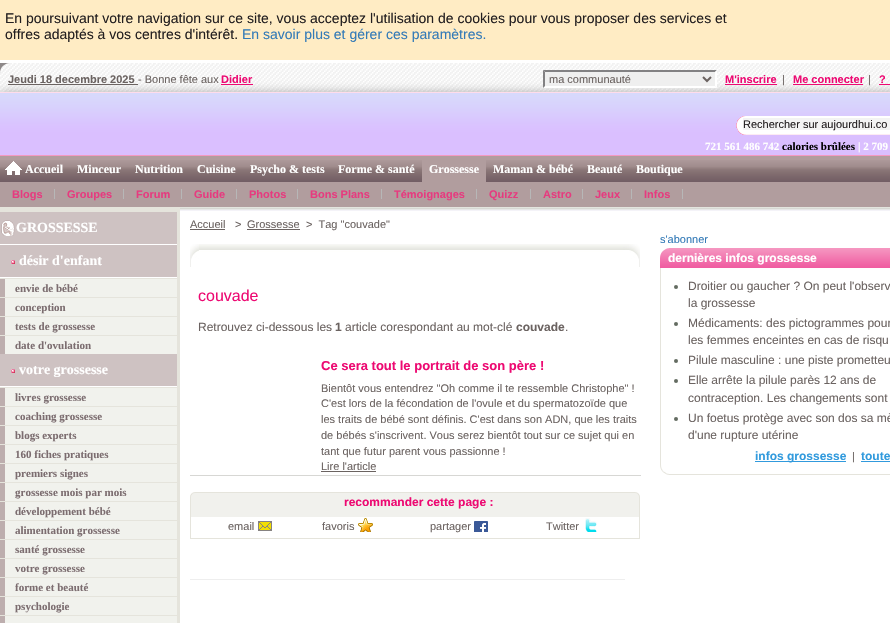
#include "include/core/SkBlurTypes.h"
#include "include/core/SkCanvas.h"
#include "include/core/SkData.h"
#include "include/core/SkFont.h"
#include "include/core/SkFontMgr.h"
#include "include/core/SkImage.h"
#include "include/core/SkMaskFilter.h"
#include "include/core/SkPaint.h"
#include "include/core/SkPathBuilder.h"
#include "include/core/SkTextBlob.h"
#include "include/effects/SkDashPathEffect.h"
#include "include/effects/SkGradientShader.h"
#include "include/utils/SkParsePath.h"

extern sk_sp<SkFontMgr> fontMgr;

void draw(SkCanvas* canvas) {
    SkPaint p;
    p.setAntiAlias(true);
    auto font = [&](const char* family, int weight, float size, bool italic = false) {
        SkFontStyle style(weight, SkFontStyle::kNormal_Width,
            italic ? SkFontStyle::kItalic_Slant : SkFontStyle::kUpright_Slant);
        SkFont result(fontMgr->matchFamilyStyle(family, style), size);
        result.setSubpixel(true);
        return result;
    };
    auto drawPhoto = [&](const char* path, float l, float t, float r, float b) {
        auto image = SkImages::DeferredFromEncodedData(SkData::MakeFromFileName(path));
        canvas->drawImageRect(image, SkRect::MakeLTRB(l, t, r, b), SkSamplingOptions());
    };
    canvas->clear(0xFFFFFFFF);
    p.setColor(0xFFFFECC4);
    canvas->drawRect(SkRect::MakeLTRB(0, 0, 890, 60), p);
    auto font1 = font("Liberation Sans", 400, 14);
    p.setColor(0xFF231F20);
    canvas->drawString("En poursuivant votre navigation sur ce site, vous acceptez l'utilisation de cookies pour vous proposer des services et", 5, 23, font1, p);
    canvas->drawString("offres adaptés à vos centres d'intérêt.", 5, 39, font1, p);
    p.setColor(0xFF337AB7);
    canvas->drawString("En savoir plus et gérer ces paramètres.", 242, 39, font1, p);
    drawPhoto("media/1.png", 0, 93, 890, 155);
    drawPhoto("media/2.png", 0, 63, 890, 93);
    auto font2 = font("Liberation Sans", 700, 11);
    p.setColor(0xFF6B6361);
    canvas->drawString("Jeudi 18 decembre 2025", 8, 83, font2, p);
    canvas->drawRect(SkRect::MakeLTRB(8, 84, 138, 85), p);
    auto font3 = font("Liberation Sans", 400, 11);
    canvas->drawString("- Bonne fête aux", 138, 83, font3, p);
    p.setColor(0xFFED0972);
    canvas->drawString("Didier", 221, 83, font2, p);
    canvas->drawRect(SkRect::MakeLTRB(221, 84, 253, 85), p);
    p.setColor(0xFFEFEFEF);
    canvas->drawRect(SkRect::MakeLTRB(543, 70, 717, 88), p);
    p.setColor(0xFF828183);
    canvas->drawPath(SkPathBuilder().moveTo(543, 70).lineTo(717, 70).lineTo(715, 72).lineTo(545, 72).close().detach(), p);
    p.setColor(0xFFFFFFFF);
    canvas->drawPath(SkPathBuilder().moveTo(717, 70).lineTo(717, 88).lineTo(715, 86).lineTo(715, 72).close().detach(), p);
    canvas->drawPath(SkPathBuilder().moveTo(717, 88).lineTo(543, 88).lineTo(545, 86).lineTo(715, 86).close().detach(), p);
    p.setColor(0xFF828183);
    canvas->drawPath(SkPathBuilder().moveTo(543, 88).lineTo(543, 70).lineTo(545, 72).lineTo(545, 86).close().detach(), p);
    p.setStyle(SkPaint::kStroke_Style);
    p.setStrokeWidth(2);
    p.setColor(0xFF6B6361);
    canvas->drawPath(SkPathBuilder().moveTo(703, 77).lineTo(707, 81).lineTo(711, 77).detach(), p);
    p.setStyle(SkPaint::kFill_Style);
    canvas->drawString("ma communauté", 549, 83, font3, p);
    p.setColor(0xFFED0972);
    canvas->drawString("M'inscrire", 725, 83, font2, p);
    canvas->drawRect(SkRect::MakeLTRB(725, 84, 777, 85), p);
    p.setColor(0xFF6B6361);
    canvas->drawString("|", 782, 83, font3, p);
    p.setColor(0xFFED0972);
    canvas->drawString("Me connecter", 793, 83, font2, p);
    canvas->drawRect(SkRect::MakeLTRB(793, 84, 863, 85), p);
    p.setColor(0xFF6B6361);
    canvas->drawString("|", 868, 83, font3, p);
    p.setColor(0xFFED0972);
    canvas->drawString("?", 879, 83, font2, p);
    canvas->drawRect(SkRect::MakeLTRB(879, 84, 890, 85), p);
    drawPhoto("media/3.png", 736, 116, 890, 135);
    p.setColor(0xFFF3F3F3);
    canvas->drawRect(SkRect::MakeLTRB(743, 118, 890, 130), p);
    p.setColor(0xFF231F20);
    canvas->drawString("Rechercher sur aujourdhui.co", 743, 128, font3, p);
    auto font4 = font("Liberation Serif", 700, 11);
    p.setColor(0xFFFFFFFF);
    canvas->drawString("721 561 486 742", 705, 150, font4, p);
    p.setColor(0xFF000000);
    canvas->drawString("calories brûlées", 782, 150, font4, p);
    p.setColor(0xFFFFFFFF);
    canvas->drawString("| 2 709", 858, 150, font4, p);
    p.setColor(0xFFB19D9E);
    canvas->drawRect(SkRect::MakeLTRB(0, 156, 890, 207), p);
    p.setColor(0xFFF499C1);
    canvas->drawRect(SkRect::MakeLTRB(0, 155, 890, 156), p);
    drawPhoto("media/4.png", 0, 160, 890, 182);
    drawPhoto("media/5.png", 5, 161, 22, 175);
    auto font5 = font("Liberation Serif", 700, 12);
    p.setColor(0xFFFFFFFF);
    {
        const struct { const char* s; float x, y; } items[] = {
            {"Accueil", 25, 173},
            {"Minceur", 77, 173},
            {"Nutrition", 135, 173},
            {"Cuisine", 197, 173},
            {"Psycho & tests", 250, 173},
            {"Forme & santé", 338, 173},
        };
        for (auto [s, x, y] : items) {
            canvas->drawString(s, x, y, font5, p);
        }
    }
    p.setColor(0xFFB19D9E);
    canvas->drawRect(SkRect::MakeLTRB(422, 160, 486, 182), p);
    p.setColor(0xFFFFFFFF);
    {
        const struct { const char* s; float x, y; } items[] = {
            {"Grossesse", 429, 173},
            {"Maman & bébé", 493, 173},
            {"Beauté", 587, 173},
            {"Boutique", 636, 173},
        };
        for (auto [s, x, y] : items) {
            canvas->drawString(s, x, y, font5, p);
        }
    }
    p.setColor(0xFFB7B7B7);
    canvas->drawRect(SkRect::MakeLTRB(54, 189, 55, 199), p);
    p.setColor(0xFFE63B7F);
    canvas->drawString("Blogs", 12, 198, font2, p);
    p.setColor(0xFFB7B7B7);
    canvas->drawRect(SkRect::MakeLTRB(123, 189, 124, 199), p);
    p.setColor(0xFFE63B7F);
    canvas->drawString("Groupes", 67, 198, font2, p);
    p.setColor(0xFFB7B7B7);
    canvas->drawRect(SkRect::MakeLTRB(181, 189, 182, 199), p);
    p.setColor(0xFFE63B7F);
    canvas->drawString("Forum", 136, 198, font2, p);
    p.setColor(0xFFB7B7B7);
    canvas->drawRect(SkRect::MakeLTRB(236, 189, 237, 199), p);
    p.setColor(0xFFE63B7F);
    canvas->drawString("Guide", 194, 198, font2, p);
    p.setColor(0xFFB7B7B7);
    canvas->drawRect(SkRect::MakeLTRB(297, 189, 298, 199), p);
    p.setColor(0xFFE63B7F);
    canvas->drawString("Photos", 249, 198, font2, p);
    p.setColor(0xFFB7B7B7);
    canvas->drawRect(SkRect::MakeLTRB(381, 189, 382, 199), p);
    p.setColor(0xFFE63B7F);
    canvas->drawString("Bons Plans", 310, 198, font2, p);
    p.setColor(0xFFB7B7B7);
    canvas->drawRect(SkRect::MakeLTRB(476, 189, 477, 199), p);
    p.setColor(0xFFE63B7F);
    canvas->drawString("Témoignages", 394, 198, font2, p);
    p.setColor(0xFFB7B7B7);
    canvas->drawRect(SkRect::MakeLTRB(530, 189, 531, 199), p);
    p.setColor(0xFFE63B7F);
    canvas->drawString("Quizz", 489, 198, font2, p);
    p.setColor(0xFFB7B7B7);
    canvas->drawRect(SkRect::MakeLTRB(582, 189, 583, 199), p);
    p.setColor(0xFFE63B7F);
    canvas->drawString("Astro", 543, 198, font2, p);
    p.setColor(0xFFB7B7B7);
    canvas->drawRect(SkRect::MakeLTRB(631, 189, 632, 199), p);
    p.setColor(0xFFE63B7F);
    canvas->drawString("Jeux", 595, 198, font2, p);
    p.setColor(0xFFB7B7B7);
    canvas->drawRect(SkRect::MakeLTRB(682, 189, 683, 199), p);
    p.setColor(0xFFE63B7F);
    canvas->drawString("Infos", 644, 198, font2, p);
    drawPhoto("media/6.png", 180, 207, 890, 211);
    {
        const struct { float l, t, r, b; SkColor color; } items[] = {
            {0, 207, 180, 623, 0xFFE5E4DC},
            {5, 279, 177, 623, 0xFFF1F2ED},
            {0, 212, 177, 244, 0xFFCEC2C2},
            {0, 244, 177, 245, 0xFFFFFFFF},
        };
        for (auto [l, t, r, b, color] : items) {
            p.setColor(color);
            canvas->drawRect(SkRect::MakeLTRB(l, t, r, b), p);
        }
    }
    drawPhoto("media/7.png", 1, 220, 15, 236);
    auto font6 = font("Liberation Serif", 700, 14);
    canvas->drawString("GROSSESSE", 16, 232, font6, p);
    p.setColor(0xFFCEC2C2);
    canvas->drawRect(SkRect::MakeLTRB(0, 245, 177, 277), p);
    p.setColor(0xFFFFFFFF);
    canvas->drawRect(SkRect::MakeLTRB(0, 277, 177, 278), p);
    drawPhoto("media/8.png", 11, 260, 15, 264);
    canvas->drawString("désir d'enfant", 19, 265, font6, p);
    p.setColor(0xFFBDAEAE);
    canvas->drawRect(SkRect::MakeLTRB(0, 279, 5, 297), p);
    p.setColor(0xFF7C6D70);
    canvas->drawString("envie de bébé", 15, 292, font4, p);
    p.setColor(0xFFE5E4DC);
    canvas->drawRect(SkRect::MakeLTRB(0, 297, 177, 298), p);
    p.setColor(0xFFBDAEAE);
    canvas->drawRect(SkRect::MakeLTRB(0, 298, 5, 316), p);
    p.setColor(0xFF7C6D70);
    canvas->drawString("conception", 15, 311, font4, p);
    p.setColor(0xFFE5E4DC);
    canvas->drawRect(SkRect::MakeLTRB(0, 316, 177, 317), p);
    p.setColor(0xFFBDAEAE);
    canvas->drawRect(SkRect::MakeLTRB(0, 317, 5, 335), p);
    p.setColor(0xFF7C6D70);
    canvas->drawString("tests de grossesse", 15, 330, font4, p);
    p.setColor(0xFFE5E4DC);
    canvas->drawRect(SkRect::MakeLTRB(0, 335, 177, 336), p);
    p.setColor(0xFFBDAEAE);
    canvas->drawRect(SkRect::MakeLTRB(0, 336, 5, 354), p);
    p.setColor(0xFF7C6D70);
    canvas->drawString("date d'ovulation", 15, 349, font4, p);
    p.setColor(0xFFCEC2C2);
    canvas->drawRect(SkRect::MakeLTRB(0, 354, 177, 386), p);
    p.setColor(0xFFFFFFFF);
    canvas->drawRect(SkRect::MakeLTRB(0, 386, 177, 387), p);
    drawPhoto("media/8.png", 11, 369, 15, 373);
    canvas->drawString("votre grossesse", 19, 374, font6, p);
    p.setColor(0xFFE5E4DC);
    canvas->drawRect(SkRect::MakeLTRB(0, 387, 177, 388), p);
    p.setColor(0xFFBDAEAE);
    canvas->drawRect(SkRect::MakeLTRB(0, 388, 5, 406), p);
    p.setColor(0xFF7C6D70);
    canvas->drawString("livres grossesse", 15, 401, font4, p);
    p.setColor(0xFFE5E4DC);
    canvas->drawRect(SkRect::MakeLTRB(0, 406, 177, 407), p);
    p.setColor(0xFFBDAEAE);
    canvas->drawRect(SkRect::MakeLTRB(0, 407, 5, 425), p);
    p.setColor(0xFF7C6D70);
    canvas->drawString("coaching grossesse", 15, 420, font4, p);
    p.setColor(0xFFE5E4DC);
    canvas->drawRect(SkRect::MakeLTRB(0, 425, 177, 426), p);
    p.setColor(0xFFBDAEAE);
    canvas->drawRect(SkRect::MakeLTRB(0, 426, 5, 444), p);
    p.setColor(0xFF7C6D70);
    canvas->drawString("blogs experts", 15, 439, font4, p);
    p.setColor(0xFFE5E4DC);
    canvas->drawRect(SkRect::MakeLTRB(0, 444, 177, 445), p);
    p.setColor(0xFFBDAEAE);
    canvas->drawRect(SkRect::MakeLTRB(0, 445, 5, 463), p);
    p.setColor(0xFF7C6D70);
    canvas->drawString("160 fiches pratiques", 15, 458, font4, p);
    p.setColor(0xFFE5E4DC);
    canvas->drawRect(SkRect::MakeLTRB(0, 463, 177, 464), p);
    p.setColor(0xFFBDAEAE);
    canvas->drawRect(SkRect::MakeLTRB(0, 464, 5, 482), p);
    p.setColor(0xFF7C6D70);
    canvas->drawString("premiers signes", 15, 477, font4, p);
    p.setColor(0xFFE5E4DC);
    canvas->drawRect(SkRect::MakeLTRB(0, 482, 177, 483), p);
    p.setColor(0xFFBDAEAE);
    canvas->drawRect(SkRect::MakeLTRB(0, 483, 5, 501), p);
    p.setColor(0xFF7C6D70);
    canvas->drawString("grossesse mois par mois", 15, 496, font4, p);
    p.setColor(0xFFE5E4DC);
    canvas->drawRect(SkRect::MakeLTRB(0, 501, 177, 502), p);
    p.setColor(0xFFBDAEAE);
    canvas->drawRect(SkRect::MakeLTRB(0, 502, 5, 520), p);
    p.setColor(0xFF7C6D70);
    canvas->drawString("développement bébé", 15, 515, font4, p);
    p.setColor(0xFFE5E4DC);
    canvas->drawRect(SkRect::MakeLTRB(0, 520, 177, 521), p);
    p.setColor(0xFFBDAEAE);
    canvas->drawRect(SkRect::MakeLTRB(0, 521, 5, 539), p);
    p.setColor(0xFF7C6D70);
    canvas->drawString("alimentation grossesse", 15, 534, font4, p);
    p.setColor(0xFFE5E4DC);
    canvas->drawRect(SkRect::MakeLTRB(0, 539, 177, 540), p);
    p.setColor(0xFFBDAEAE);
    canvas->drawRect(SkRect::MakeLTRB(0, 540, 5, 558), p);
    p.setColor(0xFF7C6D70);
    canvas->drawString("santé grossesse", 15, 553, font4, p);
    p.setColor(0xFFE5E4DC);
    canvas->drawRect(SkRect::MakeLTRB(0, 558, 177, 559), p);
    p.setColor(0xFFBDAEAE);
    canvas->drawRect(SkRect::MakeLTRB(0, 559, 5, 577), p);
    p.setColor(0xFF7C6D70);
    canvas->drawString("votre grossesse", 15, 572, font4, p);
    p.setColor(0xFFE5E4DC);
    canvas->drawRect(SkRect::MakeLTRB(0, 577, 177, 578), p);
    p.setColor(0xFFBDAEAE);
    canvas->drawRect(SkRect::MakeLTRB(0, 578, 5, 596), p);
    p.setColor(0xFF7C6D70);
    canvas->drawString("forme et beauté", 15, 591, font4, p);
    p.setColor(0xFFE5E4DC);
    canvas->drawRect(SkRect::MakeLTRB(0, 596, 177, 597), p);
    p.setColor(0xFFBDAEAE);
    canvas->drawRect(SkRect::MakeLTRB(0, 597, 5, 615), p);
    p.setColor(0xFF7C6D70);
    canvas->drawString("psychologie", 15, 610, font4, p);
    p.setColor(0xFFE5E4DC);
    canvas->drawRect(SkRect::MakeLTRB(0, 615, 177, 616), p);
    p.setColor(0xFFBDAEAE);
    canvas->drawRect(SkRect::MakeLTRB(0, 616, 5, 623), p);
    p.setColor(0xFF6B6361);
    canvas->drawString("Accueil", 190, 228, font3, p);
    canvas->drawRect(SkRect::MakeLTRB(190, 229, 225, 230), p);
    canvas->drawString(">", 235, 228, font3, p);
    canvas->drawString("Grossesse", 247, 228, font3, p);
    canvas->drawRect(SkRect::MakeLTRB(247, 229, 300, 230), p);
    canvas->drawString(">  Tag \"couvade\"", 306, 228, font3, p);
    drawPhoto("media/9.png", 190, 244, 640, 267);
    auto font7 = font("Liberation Sans", 400, 16);
    p.setColor(0xFFED0972);
    canvas->drawString("couvade", 198, 301, font7, p);
    auto font8 = font("Liberation Sans", 400, 12);
    p.setColor(0xFF6B6361);
    canvas->drawString("Retrouvez ci-dessous les", 198, 331, font8, p);
    auto font9 = font("Liberation Sans", 700, 12);
    canvas->drawString("1", 335, 331, font9, p);
    canvas->drawString("article corespondant au mot-clé", 345, 331, font8, p);
    canvas->drawString("couvade", 516, 331, font9, p);
    canvas->drawString(".", 565, 331, font8, p);
    auto font10 = font("Liberation Sans", 700, 13);
    p.setColor(0xFFED0972);
    canvas->drawString("Ce sera tout le portrait de son père !", 321, 370, font10, p);
    p.setColor(0xFF6B6361);
    {
        const struct { const char* s; float x, y; } items[] = {
            {"Bientôt vous entendrez \"Oh comme il te ressemble Christophe\" !", 321, 392},
            {"C'est lors de la fécondation de l'ovule et du spermatozoïde que", 321, 407},
            {"les traits de bébé sont définis. C'est dans son ADN, que les traits", 321, 423},
            {"de bébés s'inscrivent. Vous serez bientôt tout sur ce sujet qui en", 321, 439},
            {"tant que futur parent vous passionne !", 321, 455},
            {"Lire l'article", 321, 470},
        };
        for (auto [s, x, y] : items) {
            canvas->drawString(s, x, y, font3, p);
        }
    }
    canvas->drawRect(SkRect::MakeLTRB(321, 471, 376, 472), p);
    p.setColor(0xFFD7D7D4);
    canvas->drawRect(SkRect::MakeLTRB(190, 475, 641, 476), p);
    drawPhoto("media/10.png", 190, 492, 640, 517);
    p.setColor(0xFFED0972);
    canvas->drawString("recommander cette page :", 344, 506, font9, p);
    {
        const struct { float l, t, r, b; SkColor color; } items[] = {
            {639, 514, 640, 539, 0xFFE5E4DC},
            {190, 538, 640, 539, 0xFFE5E4DC},
            {190, 514, 191, 539, 0xFFE5E4DC},
        };
        for (auto [l, t, r, b, color] : items) {
            p.setColor(color);
            canvas->drawRect(SkRect::MakeLTRB(l, t, r, b), p);
        }
    }
    p.setColor(0xFF6B6361);
    canvas->drawString("email", 228, 530, font3, p);
    drawPhoto("media/11.png", 258, 521, 272, 531);
    canvas->drawString("favoris", 322, 530, font3, p);
    drawPhoto("media/12.png", 358, 518, 373, 532);
    canvas->drawString("partager", 430, 530, font3, p);
    drawPhoto("media/13.png", 474, 521, 488, 532);
    canvas->drawString("Twitter", 546, 530, font3, p);
    drawPhoto("media/14.png", 585, 518, 597, 532);
    p.setColor(0xFFEEEEEE);
    canvas->drawRect(SkRect::MakeLTRB(190, 579, 625, 580), p);
    p.setColor(0xFF337AB7);
    canvas->drawString("s'abonner", 660, 243, font3, p);
    drawPhoto("media/15.png", 660, 248, 890, 268);
    p.setColor(0xFFFFFFFF);
    canvas->drawString("dernières infos grossesse", 668, 262, font9, p);
    p.setColor(0xFFE5E4DC);
    canvas->drawRect(SkRect::MakeLTRB(660, 268, 661, 465), p);
    p.setColor(0xFF636B61);
    canvas->drawCircle(676, 287, 2, p);
    p.setColor(0xFF6B6361);
    canvas->drawString("Droitier ou gaucher ? On peut l'observ", 688, 290, font8, p);
    canvas->drawString("la grossesse", 688, 307, font8, p);
    p.setColor(0xFF636B61);
    canvas->drawCircle(676, 324, 2, p);
    p.setColor(0xFF6B6361);
    canvas->drawString("Médicaments: des pictogrammes pour", 688, 327, font8, p);
    canvas->drawString("les femmes enceintes en cas de risqu", 688, 344, font8, p);
    p.setColor(0xFF636B61);
    canvas->drawCircle(676, 361, 2, p);
    p.setColor(0xFF6B6361);
    canvas->drawString("Pilule masculine : une piste prometteu", 688, 364, font8, p);
    p.setColor(0xFF636B61);
    canvas->drawCircle(676, 381, 2, p);
    p.setColor(0xFF6B6361);
    canvas->drawString("Elle arrête la pilule parès 12 ans de", 688, 384, font8, p);
    canvas->drawString("contraception. Les changements sont", 688, 402, font8, p);
    p.setColor(0xFF636B61);
    canvas->drawCircle(676, 419, 2, p);
    p.setColor(0xFF6B6361);
    canvas->drawString("Un foetus protège avec son dos sa mè", 688, 422, font8, p);
    canvas->drawString("d'une rupture utérine", 688, 439, font8, p);
    p.setColor(0xFF319ADD);
    canvas->drawRect(SkRect::MakeLTRB(755, 461, 846, 462), p);
    canvas->drawString("infos grossesse", 755, 460, font9, p);
    p.setColor(0xFF6B6361);
    canvas->drawString("|", 852, 460, font3, p);
    p.setColor(0xFF319ADD);
    canvas->drawString("toute", 861, 460, font9, p);
    canvas->drawRect(SkRect::MakeLTRB(861, 461, 890, 462), p);
    drawPhoto("media/16.png", 660, 465, 890, 475);
}
